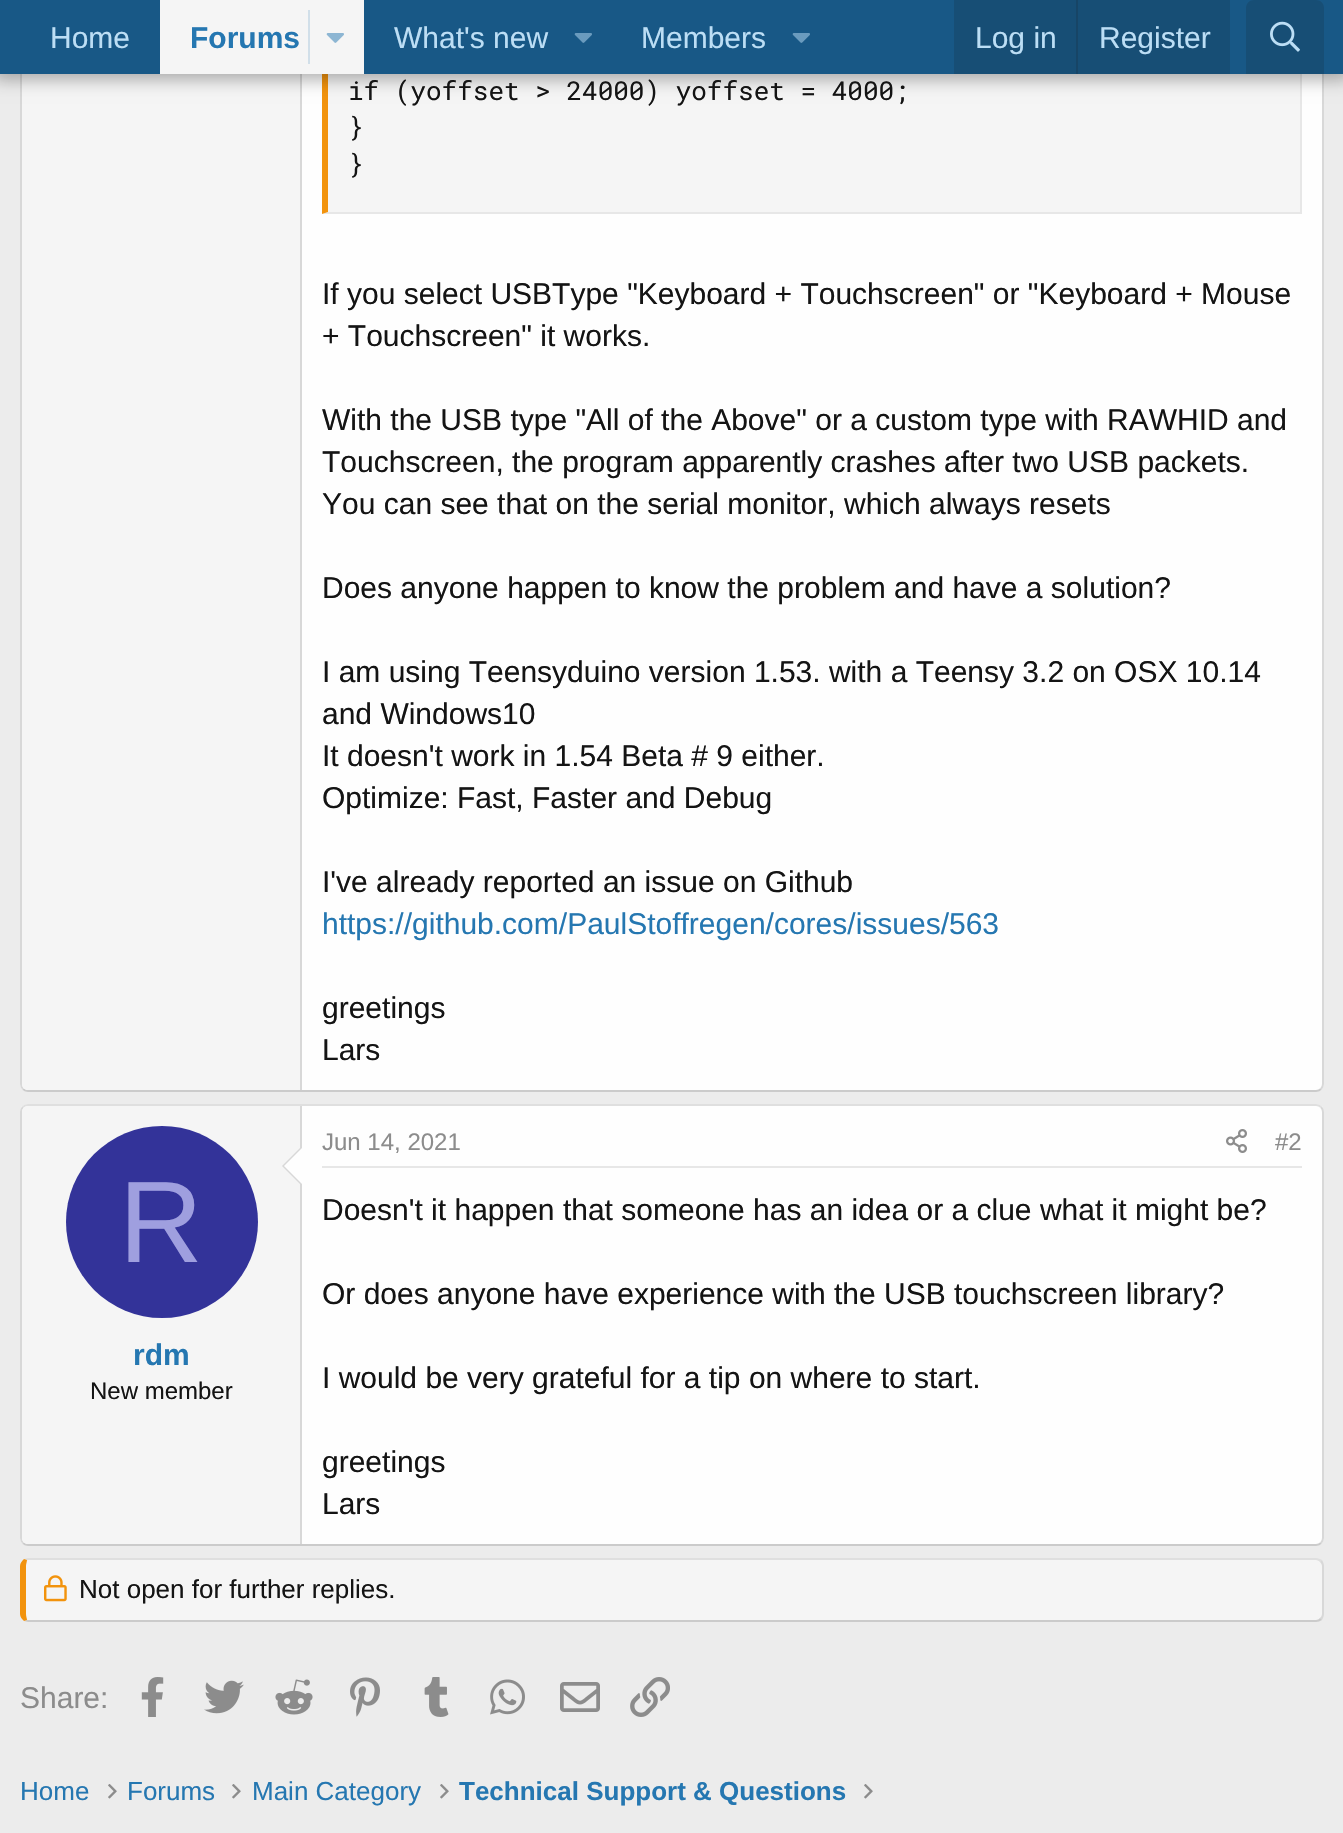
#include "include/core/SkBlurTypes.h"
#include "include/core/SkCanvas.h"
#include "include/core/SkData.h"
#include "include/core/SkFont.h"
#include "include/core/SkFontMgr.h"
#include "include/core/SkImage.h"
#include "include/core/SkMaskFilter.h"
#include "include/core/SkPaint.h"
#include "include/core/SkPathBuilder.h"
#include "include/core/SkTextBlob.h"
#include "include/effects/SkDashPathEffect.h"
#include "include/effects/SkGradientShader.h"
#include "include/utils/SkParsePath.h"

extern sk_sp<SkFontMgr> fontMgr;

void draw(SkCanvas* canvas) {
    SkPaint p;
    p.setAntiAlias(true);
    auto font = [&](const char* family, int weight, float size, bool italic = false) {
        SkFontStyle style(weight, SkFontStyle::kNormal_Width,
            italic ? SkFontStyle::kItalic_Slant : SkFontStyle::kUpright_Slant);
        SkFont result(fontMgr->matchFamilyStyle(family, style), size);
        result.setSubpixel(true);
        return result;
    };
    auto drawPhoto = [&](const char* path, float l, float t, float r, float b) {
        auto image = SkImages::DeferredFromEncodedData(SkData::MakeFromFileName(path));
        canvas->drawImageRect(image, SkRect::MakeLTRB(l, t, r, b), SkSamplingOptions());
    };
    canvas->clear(0xFFECECEC);
    p.setColor(0xFFFEFEFE);
    canvas->drawRoundRect(SkRect::MakeLTRB(20, -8, 1324, 1092), 8, 8, p);
    p.setStyle(SkPaint::kStroke_Style);
    p.setStrokeWidth(2);
    p.setColor(0xFFD8D8D8);
    canvas->drawPath(SkPathBuilder().moveTo(1321, -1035).cubicTo(1322.5f, -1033.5f, 1323, -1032, 1323, -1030).lineTo(1323, 1084).cubicTo(1323, 1086, 1322.5f, 1087.5f, 1321, 1089).detach(), p);
    p.setColor(0xFFCBCBCB);
    canvas->drawPath(SkPathBuilder().moveTo(1321, 1089).cubicTo(1319.5f, 1090.5f, 1318, 1091, 1316, 1091).lineTo(28, 1091).cubicTo(26, 1091, 24.5f, 1090.5f, 23, 1089).detach(), p);
    p.setColor(0xFFD8D8D8);
    canvas->drawPath(SkPathBuilder().moveTo(23, 1089).cubicTo(21.5f, 1087.5f, 21, 1086, 21, 1084).lineTo(21, -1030).cubicTo(21, -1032, 21.5f, -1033.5f, 23, -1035).detach(), p);
    p.setStyle(SkPaint::kFill_Style);
    p.setColor(0xFFF5F5F5);
    canvas->drawPath(SkPathBuilder().moveTo(28, -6).lineTo(302, -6).lineTo(302, 1090).lineTo(28, 1090).cubicTo(24.5f, 1090, 22, 1087.5f, 22, 1084).lineTo(22, 0).cubicTo(22, -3.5f, 24.5f, -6, 28, -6).close().detach(), p);
    {
        const struct { float l, t, r, b; SkColor color; } items[] = {
            {300, 74, 302, 1090, 0xFFD8D8D8},
            {328, 74, 1300, 212, 0xFFF5F5F5},
            {1300, 74, 1302, 214, 0xFFE7E7E7},
        };
        for (auto [l, t, r, b, color] : items) {
            p.setColor(color);
            canvas->drawRect(SkRect::MakeLTRB(l, t, r, b), p);
        }
    }
    canvas->drawPath(SkPathBuilder().moveTo(1302, 214).lineTo(322, 214).lineTo(328, 212).lineTo(1300, 212).close().detach(), p);
    p.setColor(0xFFF2930D);
    canvas->drawPath(SkPathBuilder().moveTo(322, 214).lineTo(322, -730).lineTo(328, -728).lineTo(328, 212).close().detach(), p);
    p.setColor(0x4D000000);
    p.setMaskFilter(SkMaskFilter::MakeBlur(kNormal_SkBlurStyle, 8));
    canvas->drawRect(SkRect::MakeLTRB(-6, -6, 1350, 80), p);
    p.setMaskFilter(nullptr);
    p.setColor(0xFF185886);
    canvas->drawRect(SkRect::MakeLTRB(0, 0, 1343, 74), p);
    auto font1 = font("Liberation Sans", 400, 30);
    p.setColor(0xFFBCDEF5);
    canvas->drawString("Home", 50, 48, font1, p);
    p.setColor(0xFFF5F5F5);
    canvas->drawRect(SkRect::MakeLTRB(160, 0, 364, 74), p);
    auto font2 = font("Liberation Sans", 700, 30);
    p.setColor(0xFF2577B1);
    canvas->drawString("Forums", 190, 48, font2, p);
    p.setColor(0xFFD1DFE9);
    canvas->drawRect(SkRect::MakeLTRB(308, 10, 310, 64), p);
    drawPhoto("media/1.png", 326, 33, 344, 43);
    p.setColor(0xFFBCDEF5);
    canvas->drawString("What's new", 394, 48, font1, p);
    drawPhoto("media/2.png", 574, 33, 592, 43);
    canvas->drawString("Members", 641, 48, font1, p);
    drawPhoto("media/2.png", 792, 33, 810, 43);
    p.setColor(0xFF174E75);
    canvas->drawRect(SkRect::MakeLTRB(954, 0, 1230, 74), p);
    p.setColor(0xFFBCDEF5);
    canvas->drawString("Log in", 975, 48, font1, p);
    p.setColor(0xFF174566);
    canvas->drawRect(SkRect::MakeLTRB(1076, 0, 1078, 74), p);
    p.setColor(0xFFBCDEF5);
    canvas->drawString("Register", 1099, 48, font1, p);
    p.setColor(0xFF174E75);
    canvas->drawPath(SkPathBuilder().moveTo(1254, 0).lineTo(1316, 0).cubicTo(1320.5f, 0, 1324, 3.5f, 1324, 8).lineTo(1324, 74).lineTo(1246, 74).lineTo(1246, 8).cubicTo(1246, 3.5f, 1249.5f, 0, 1254, 0).close().detach(), p);
    drawPhoto("media/3.png", 1270, 21, 1300, 52);
    auto font3 = font("Roboto Mono", 400, 26);
    p.setColor(0xFF141414);
    {
        const struct { const char* s; float x, y; } items[] = {
            {"if (yoffset > 24000) yoffset = 4000;", 348, 100},
            {"}", 348, 136},
            {"}", 348, 173},
        };
        for (auto [s, x, y] : items) {
            canvas->drawString(s, x, y, font3, p);
        }
    }
    {
        const struct { const char* s; float x, y; } items[] = {
            {"If you select USBType \"Keyboard + Touchscreen\" or \"Keyboard + Mouse", 322, 304},
            {"+ Touchscreen\" it works.", 322, 346},
            {"With the USB type \"All of the Above\" or a custom type with RAWHID and", 322, 430},
            {"Touchscreen, the program apparently crashes after two USB packets.", 322, 472},
            {"You can see that on the serial monitor, which always resets", 322, 514},
            {"Does anyone happen to know the problem and have a solution?", 322, 598},
            {"I am using Teensyduino version 1.53. with a Teensy 3.2 on OSX 10.14", 322, 682},
            {"and Windows10", 322, 724},
            {"It doesn't work in 1.54 Beta # 9 either.", 322, 766},
            {"Optimize: Fast, Faster and Debug", 322, 808},
            {"I've already reported an issue on Github", 322, 892},
        };
        for (auto [s, x, y] : items) {
            canvas->drawString(s, x, y, font1, p);
        }
    }
    p.setColor(0xFF2577B1);
    canvas->drawString("https://github.com/PaulStoffregen/cores/issues/563", 322, 934, font1, p);
    p.setColor(0xFF141414);
    canvas->drawString("greetings", 322, 1018, font1, p);
    canvas->drawString("Lars", 322, 1060, font1, p);
    p.setColor(0xFFFEFEFE);
    canvas->drawRoundRect(SkRect::MakeLTRB(20, 1104, 1324, 1546), 8, 8, p);
    p.setStyle(SkPaint::kStroke_Style);
    p.setColor(0xFFDFDFDF);
    canvas->drawPath(SkPathBuilder().moveTo(23, 1107).cubicTo(24.5f, 1105.5f, 26, 1105, 28, 1105).lineTo(1316, 1105).cubicTo(1318, 1105, 1319.5f, 1105.5f, 1321, 1107).detach(), p);
    p.setColor(0xFFD8D8D8);
    canvas->drawPath(SkPathBuilder().moveTo(1321, 1107).cubicTo(1322.5f, 1108.5f, 1323, 1110, 1323, 1112).lineTo(1323, 1538).cubicTo(1323, 1540, 1322.5f, 1541.5f, 1321, 1543).detach(), p);
    p.setColor(0xFFCBCBCB);
    canvas->drawPath(SkPathBuilder().moveTo(1321, 1543).cubicTo(1319.5f, 1544.5f, 1318, 1545, 1316, 1545).lineTo(28, 1545).cubicTo(26, 1545, 24.5f, 1544.5f, 23, 1543).detach(), p);
    p.setColor(0xFFD8D8D8);
    canvas->drawPath(SkPathBuilder().moveTo(23, 1543).cubicTo(21.5f, 1541.5f, 21, 1540, 21, 1538).lineTo(21, 1112).cubicTo(21, 1110, 21.5f, 1108.5f, 23, 1107).detach(), p);
    p.setStyle(SkPaint::kFill_Style);
    p.setColor(0xFFF5F5F5);
    canvas->drawPath(SkPathBuilder().moveTo(28, 1106).lineTo(302, 1106).lineTo(302, 1544).lineTo(28, 1544).cubicTo(24.5f, 1544, 22, 1541.5f, 22, 1538).lineTo(22, 1112).cubicTo(22, 1108.5f, 24.5f, 1106, 28, 1106).close().detach(), p);
    p.setColor(0xFFD8D8D8);
    canvas->drawRect(SkRect::MakeLTRB(300, 1106, 302, 1544), p);
    canvas->drawPath(SkPathBuilder().moveTo(302, 1146).lineTo(302, 1186).lineTo(282, 1166).close().detach(), p);
    p.setColor(0xFFFEFEFE);
    canvas->drawPath(SkPathBuilder().moveTo(302, 1148).lineTo(302, 1184).lineTo(284, 1166).close().detach(), p);
    p.setColor(0xFF333399);
    canvas->drawCircle(162, 1222, 96, p);
    auto font4 = font("Liberation Sans", 400, 116);
    p.setColor(0xFF9F9FDF);
    canvas->drawString("R", 119, 1262, font4, p);
    p.setColor(0xFF2577B1);
    canvas->drawString("rdm", 133, 1365, font2, p);
    auto font5 = font("Liberation Sans", 400, 24);
    p.setColor(0xFF141414);
    canvas->drawString("New member", 90, 1399, font5, p);
    p.setColor(0xFFE7E7E7);
    canvas->drawRect(SkRect::MakeLTRB(322, 1166, 1302, 1168), p);
    p.setColor(0xFF8C8C8C);
    canvas->drawString("Jun 14, 2021", 322, 1150, font5, p);
    drawPhoto("media/4.png", 1226, 1129, 1247, 1153);
    canvas->drawString("#2", 1275, 1150, font5, p);
    p.setColor(0xFF141414);
    {
        const struct { const char* s; float x, y; } items[] = {
            {"Doesn't it happen that someone has an idea or a clue what it might be?", 322, 1220},
            {"Or does anyone have experience with the USB touchscreen library?", 322, 1304},
            {"I would be very grateful for a tip on where to start.", 322, 1388},
            {"greetings", 322, 1472},
            {"Lars", 322, 1514},
        };
        for (auto [s, x, y] : items) {
            canvas->drawString(s, x, y, font1, p);
        }
    }
    p.setColor(0xFFF5F5F5);
    canvas->drawPath(SkPathBuilder().moveTo(28, 1560).lineTo(1316, 1560).cubicTo(1319, 1560, 1322, 1563, 1322, 1566).lineTo(1322, 1614).cubicTo(1322, 1617, 1319, 1620, 1316, 1620).lineTo(28, 1620).cubicTo(27, 1620, 26, 1617, 26, 1614).lineTo(26, 1566).cubicTo(26, 1563, 27, 1560, 28, 1560).close().detach(), p);
    p.setColor(0xFFDFDFDF);
    canvas->drawPath(SkPathBuilder().moveTo(28, 1558).lineTo(24, 1559).lineTo(27, 1560).lineTo(28, 1560).lineTo(1316, 1560).cubicTo(1318, 1560, 1319, 1561, 1320, 1562).lineTo(1322, 1560).cubicTo(1320, 1559, 1318, 1558, 1316, 1558).close().detach(), p);
    p.setColor(0xFFD8D8D8);
    canvas->drawPath(SkPathBuilder().moveTo(1324, 1614).lineTo(1324, 1566).cubicTo(1324, 1564, 1323, 1562, 1322, 1560).lineTo(1320, 1562).cubicTo(1321, 1563, 1322, 1564, 1322, 1566).lineTo(1322, 1614).cubicTo(1322, 1616, 1321, 1617, 1320, 1618).lineTo(1322, 1620).cubicTo(1323, 1618, 1324, 1616, 1324, 1614).close().detach(), p);
    p.setColor(0xFFCBCBCB);
    canvas->drawPath(SkPathBuilder().moveTo(28, 1622).lineTo(1316, 1622).cubicTo(1318, 1622, 1320, 1621, 1322, 1620).lineTo(1320, 1618).cubicTo(1319, 1619, 1318, 1620, 1316, 1620).lineTo(28, 1620).lineTo(27, 1620).lineTo(24, 1621).close().detach(), p);
    p.setColor(0xFFF2930D);
    canvas->drawPath(SkPathBuilder().moveTo(20, 1566).lineTo(20, 1614).cubicTo(20, 1617, 22, 1619, 24, 1621).lineTo(27, 1620).cubicTo(27, 1619, 26, 1616, 26, 1614).lineTo(26, 1566).cubicTo(26, 1564, 27, 1561, 27, 1560).lineTo(24, 1559).cubicTo(22, 1561, 20, 1563, 20, 1566).close().detach(), p);
    drawPhoto("media/5.png", 44, 1575, 67, 1602);
    auto font6 = font("Liberation Sans", 400, 26);
    p.setColor(0xFF141414);
    canvas->drawString("Not open for further replies.", 79, 1598, font6, p);
    p.setColor(0xFF8C8C8C);
    canvas->drawString("Share:", 20, 1708, font1, p);
    drawPhoto("media/6.png", 141, 1677, 164, 1717);
    drawPhoto("media/7.png", 204, 1680, 244, 1714);
    drawPhoto("media/8.png", 275, 1679, 313, 1715);
    drawPhoto("media/9.png", 350, 1677, 380, 1717);
    drawPhoto("media/10.png", 424, 1677, 449, 1717);
    drawPhoto("media/11.png", 490, 1679, 525, 1715);
    drawPhoto("media/12.png", 560, 1682, 600, 1712);
    drawPhoto("media/13.png", 630, 1677, 670, 1717);
    p.setColor(0xFF2577B1);
    canvas->drawString("Home", 20, 1800, font6, p);
    drawPhoto("media/14.png", 108, 1784, 117, 1799);
    canvas->drawString("Forums", 127, 1800, font6, p);
    drawPhoto("media/14.png", 232, 1784, 241, 1799);
    canvas->drawString("Main Category", 252, 1800, font6, p);
    drawPhoto("media/14.png", 440, 1784, 449, 1799);
    auto font7 = font("Liberation Sans", 700, 26);
    canvas->drawString("Technical Support & Questions", 459, 1800, font7, p);
    drawPhoto("media/14.png", 864, 1784, 873, 1799);
}
